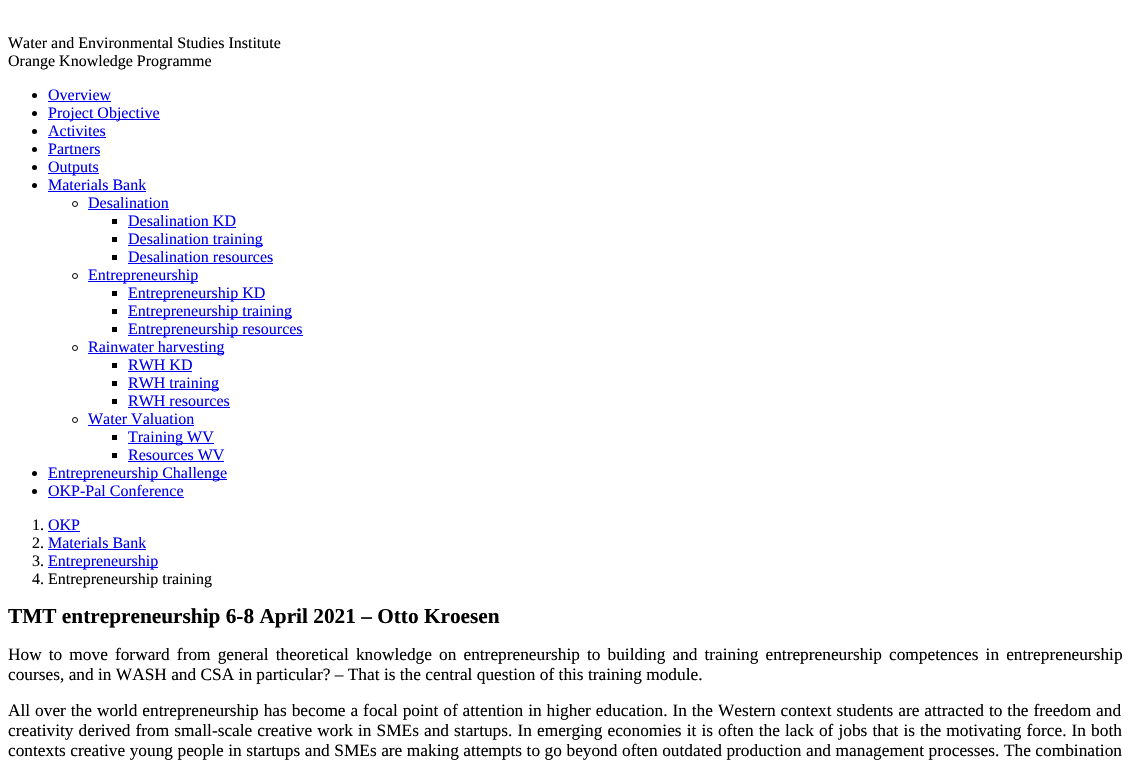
#include "include/core/SkBlurTypes.h"
#include "include/core/SkCanvas.h"
#include "include/core/SkData.h"
#include "include/core/SkFont.h"
#include "include/core/SkFontMgr.h"
#include "include/core/SkImage.h"
#include "include/core/SkMaskFilter.h"
#include "include/core/SkPaint.h"
#include "include/core/SkPathBuilder.h"
#include "include/core/SkTextBlob.h"
#include "include/effects/SkDashPathEffect.h"
#include "include/effects/SkGradientShader.h"
#include "include/utils/SkParsePath.h"

extern sk_sp<SkFontMgr> fontMgr;

void draw(SkCanvas* canvas) {
    SkPaint p;
    p.setAntiAlias(true);
    auto font = [&](const char* family, int weight, float size, bool italic = false) {
        SkFontStyle style(weight, SkFontStyle::kNormal_Width,
            italic ? SkFontStyle::kItalic_Slant : SkFontStyle::kUpright_Slant);
        SkFont result(fontMgr->matchFamilyStyle(family, style), size);
        result.setSubpixel(true);
        return result;
    };
    auto drawTracked = [&](const char* s, float x, float y, const SkFont& font, const SkPaint& ink, float letter, float word) {
        std::vector<SkGlyphID> glyphs(font.countText(s, strlen(s), SkTextEncoding::kUTF8));
        std::vector<float> xs(glyphs.size());
        font.textToGlyphs(s, strlen(s), SkTextEncoding::kUTF8, glyphs);
        font.getXPos(glyphs, xs, x);
        float extra = 0;
        for (size_t i = 0; i < glyphs.size(); i++) {
            xs[i] += extra;
            extra += letter + word * (glyphs[i] == font.unicharToGlyph(' '));
        }
        canvas->drawTextBlob(SkTextBlob::MakeFromPosHGlyphs(glyphs, xs, y, font), 0, 0, ink);
    };
    canvas->clear(0xFFFFFFFF);
    auto font1 = font("Liberation Serif", 400, 16);
    p.setColor(0xFF000000);
    canvas->drawString("Water and Environmental Studies Institute", 8, 48, font1, p);
    canvas->drawString("Orange Knowledge Programme", 8, 66, font1, p);
    canvas->drawCircle(34.5f, 95.5f, 2.5f, p);
    p.setColor(0xFF0000EE);
    canvas->drawString("Overview", 48, 100, font1, p);
    canvas->drawRect(SkRect::MakeLTRB(48, 101, 111, 102), p);
    p.setColor(0xFF000000);
    canvas->drawCircle(34.5f, 113.5f, 2.5f, p);
    p.setColor(0xFF0000EE);
    canvas->drawRect(SkRect::MakeLTRB(48, 119, 160, 120), p);
    canvas->drawString("Project Objective", 48, 118, font1, p);
    p.setColor(0xFF000000);
    canvas->drawCircle(34.5f, 131.5f, 2.5f, p);
    p.setColor(0xFF0000EE);
    canvas->drawString("Activites", 48, 136, font1, p);
    canvas->drawRect(SkRect::MakeLTRB(48, 137, 106, 138), p);
    p.setColor(0xFF000000);
    canvas->drawCircle(34.5f, 149.5f, 2.5f, p);
    p.setColor(0xFF0000EE);
    canvas->drawString("Partners", 48, 154, font1, p);
    canvas->drawRect(SkRect::MakeLTRB(48, 155, 100, 156), p);
    p.setColor(0xFF000000);
    canvas->drawCircle(34.5f, 167.5f, 2.5f, p);
    p.setColor(0xFF0000EE);
    canvas->drawRect(SkRect::MakeLTRB(48, 173, 99, 174), p);
    canvas->drawString("Outputs", 48, 172, font1, p);
    p.setColor(0xFF000000);
    canvas->drawCircle(34.5f, 185.5f, 2.5f, p);
    p.setColor(0xFF0000EE);
    canvas->drawString("Materials Bank", 48, 190, font1, p);
    canvas->drawRect(SkRect::MakeLTRB(48, 191, 146, 192), p);
    p.setStyle(SkPaint::kStroke_Style);
    p.setStrokeWidth(1);
    p.setColor(0xFF000000);
    canvas->drawCircle(75, 204, 2.5f, p);
    p.setStyle(SkPaint::kFill_Style);
    p.setColor(0xFF0000EE);
    canvas->drawString("Desalination", 88, 208, font1, p);
    canvas->drawRect(SkRect::MakeLTRB(88, 209, 169, 210), p);
    p.setColor(0xFF000000);
    canvas->drawRect(SkRect::MakeLTRB(112, 219, 117, 224), p);
    p.setColor(0xFF0000EE);
    canvas->drawString("Desalination KD", 128, 226, font1, p);
    {
        const struct { float l, t, r, b; SkColor color; } items[] = {
            {128, 227, 236, 228, 0xFF0000EE},
            {112, 237, 117, 242, 0xFF000000},
            {128, 245, 263, 246, 0xFF0000EE},
        };
        for (auto [l, t, r, b, color] : items) {
            p.setColor(color);
            canvas->drawRect(SkRect::MakeLTRB(l, t, r, b), p);
        }
    }
    canvas->drawString("Desalination training", 128, 244, font1, p);
    p.setColor(0xFF000000);
    canvas->drawRect(SkRect::MakeLTRB(112, 255, 117, 260), p);
    p.setColor(0xFF0000EE);
    canvas->drawString("Desalination resources", 128, 262, font1, p);
    canvas->drawRect(SkRect::MakeLTRB(128, 263, 273, 264), p);
    p.setStyle(SkPaint::kStroke_Style);
    p.setColor(0xFF000000);
    canvas->drawCircle(75, 276, 2.5f, p);
    p.setStyle(SkPaint::kFill_Style);
    p.setColor(0xFF0000EE);
    canvas->drawRect(SkRect::MakeLTRB(88, 281, 198, 282), p);
    canvas->drawString("Entrepreneurship", 88, 280, font1, p);
    p.setColor(0xFF000000);
    canvas->drawRect(SkRect::MakeLTRB(112, 291, 117, 296), p);
    p.setColor(0xFF0000EE);
    canvas->drawRect(SkRect::MakeLTRB(128, 299, 265, 300), p);
    canvas->drawString("Entrepreneurship KD", 128, 298, font1, p);
    p.setColor(0xFF000000);
    canvas->drawRect(SkRect::MakeLTRB(112, 309, 117, 314), p);
    p.setColor(0xFF0000EE);
    canvas->drawRect(SkRect::MakeLTRB(128, 317, 292, 318), p);
    canvas->drawString("Entrepreneurship training", 128, 316, font1, p);
    p.setColor(0xFF000000);
    canvas->drawRect(SkRect::MakeLTRB(112, 327, 117, 332), p);
    p.setColor(0xFF0000EE);
    canvas->drawRect(SkRect::MakeLTRB(128, 335, 303, 336), p);
    canvas->drawString("Entrepreneurship resources", 128, 334, font1, p);
    p.setStyle(SkPaint::kStroke_Style);
    p.setColor(0xFF000000);
    canvas->drawCircle(75, 348, 2.5f, p);
    p.setStyle(SkPaint::kFill_Style);
    p.setColor(0xFF0000EE);
    canvas->drawRect(SkRect::MakeLTRB(88, 353, 224, 354), p);
    canvas->drawString("Rainwater harvesting", 88, 352, font1, p);
    p.setColor(0xFF000000);
    canvas->drawRect(SkRect::MakeLTRB(112, 363, 117, 368), p);
    p.setColor(0xFF0000EE);
    canvas->drawString("RWH KD", 128, 370, font1, p);
    {
        const struct { float l, t, r, b; SkColor color; } items[] = {
            {128, 371, 192, 372, 0xFF0000EE},
            {112, 381, 117, 386, 0xFF000000},
            {128, 389, 219, 390, 0xFF0000EE},
        };
        for (auto [l, t, r, b, color] : items) {
            p.setColor(color);
            canvas->drawRect(SkRect::MakeLTRB(l, t, r, b), p);
        }
    }
    canvas->drawString("RWH training", 128, 388, font1, p);
    p.setColor(0xFF000000);
    canvas->drawRect(SkRect::MakeLTRB(112, 399, 117, 404), p);
    p.setColor(0xFF0000EE);
    canvas->drawString("RWH resources", 128, 406, font1, p);
    canvas->drawRect(SkRect::MakeLTRB(128, 407, 230, 408), p);
    p.setStyle(SkPaint::kStroke_Style);
    p.setColor(0xFF000000);
    canvas->drawCircle(75, 420, 2.5f, p);
    p.setStyle(SkPaint::kFill_Style);
    p.setColor(0xFF0000EE);
    canvas->drawString("Water Valuation", 88, 424, font1, p);
    {
        const struct { float l, t, r, b; SkColor color; } items[] = {
            {88, 425, 194, 426, 0xFF0000EE},
            {112, 435, 117, 440, 0xFF000000},
            {128, 443, 214, 444, 0xFF0000EE},
        };
        for (auto [l, t, r, b, color] : items) {
            p.setColor(color);
            canvas->drawRect(SkRect::MakeLTRB(l, t, r, b), p);
        }
    }
    canvas->drawString("Training WV", 128, 442, font1, p);
    p.setColor(0xFF000000);
    canvas->drawRect(SkRect::MakeLTRB(112, 453, 117, 458), p);
    p.setColor(0xFF0000EE);
    canvas->drawString("Resources WV", 128, 460, font1, p);
    canvas->drawRect(SkRect::MakeLTRB(128, 461, 224, 462), p);
    p.setColor(0xFF000000);
    canvas->drawCircle(34.5f, 473.5f, 2.5f, p);
    p.setColor(0xFF0000EE);
    canvas->drawRect(SkRect::MakeLTRB(48, 479, 227, 480), p);
    canvas->drawString("Entrepreneurship Challenge", 48, 478, font1, p);
    p.setColor(0xFF000000);
    canvas->drawCircle(34.5f, 491.5f, 2.5f, p);
    p.setColor(0xFF0000EE);
    canvas->drawString("OKP-Pal Conference", 48, 496, font1, p);
    canvas->drawRect(SkRect::MakeLTRB(48, 497, 184, 498), p);
    p.setColor(0xFF000000);
    canvas->drawString("1.", 32, 530, font1, p);
    p.setColor(0xFF0000EE);
    canvas->drawString("OKP", 48, 530, font1, p);
    canvas->drawRect(SkRect::MakeLTRB(48, 531, 80, 532), p);
    p.setColor(0xFF000000);
    canvas->drawString("2.", 32, 548, font1, p);
    p.setColor(0xFF0000EE);
    canvas->drawString("Materials Bank", 48, 548, font1, p);
    canvas->drawRect(SkRect::MakeLTRB(48, 549, 146, 550), p);
    p.setColor(0xFF000000);
    canvas->drawString("3.", 32, 566, font1, p);
    p.setColor(0xFF0000EE);
    canvas->drawRect(SkRect::MakeLTRB(48, 567, 158, 568), p);
    canvas->drawString("Entrepreneurship", 48, 566, font1, p);
    p.setColor(0xFF000000);
    canvas->drawString("4. Entrepreneurship training", 32, 584, font1, p);
    auto font2 = font("Liberation Serif", 700, 21.3f);
    canvas->drawString("TMT entrepreneurship 6-8 April 2021 – Otto Kroesen", 8, 623, font2, p);
    auto font3 = font("Liberation Serif", 400, 17.33f);
    drawTracked("How to move forward from general theoretical knowledge on entrepreneurship to building and training entrepreneurship competences in entrepreneurship", 8, 660, font3, p, 0, 2.75f);
    canvas->drawString("courses, and in WASH and CSA in particular? – That is the central question of this training module.", 8, 680, font3, p);
    drawTracked("All over the world entrepreneurship has become a focal point of attention in higher education. In the Western context students are attracted to the freedom and", 8, 716, font3, p, 0, 0.6f);
    drawTracked("creativity derived from small-scale creative work in SMEs and startups. In emerging economies it is often the lack of jobs that is the motivating force. In both", 8, 736, font3, p, 0, 0.75f);
    drawTracked("contexts creative young people in startups and SMEs are making attempts to go beyond often outdated production and management processes. The combination", 8, 756, font3, p, 0, 0.2f);
}
